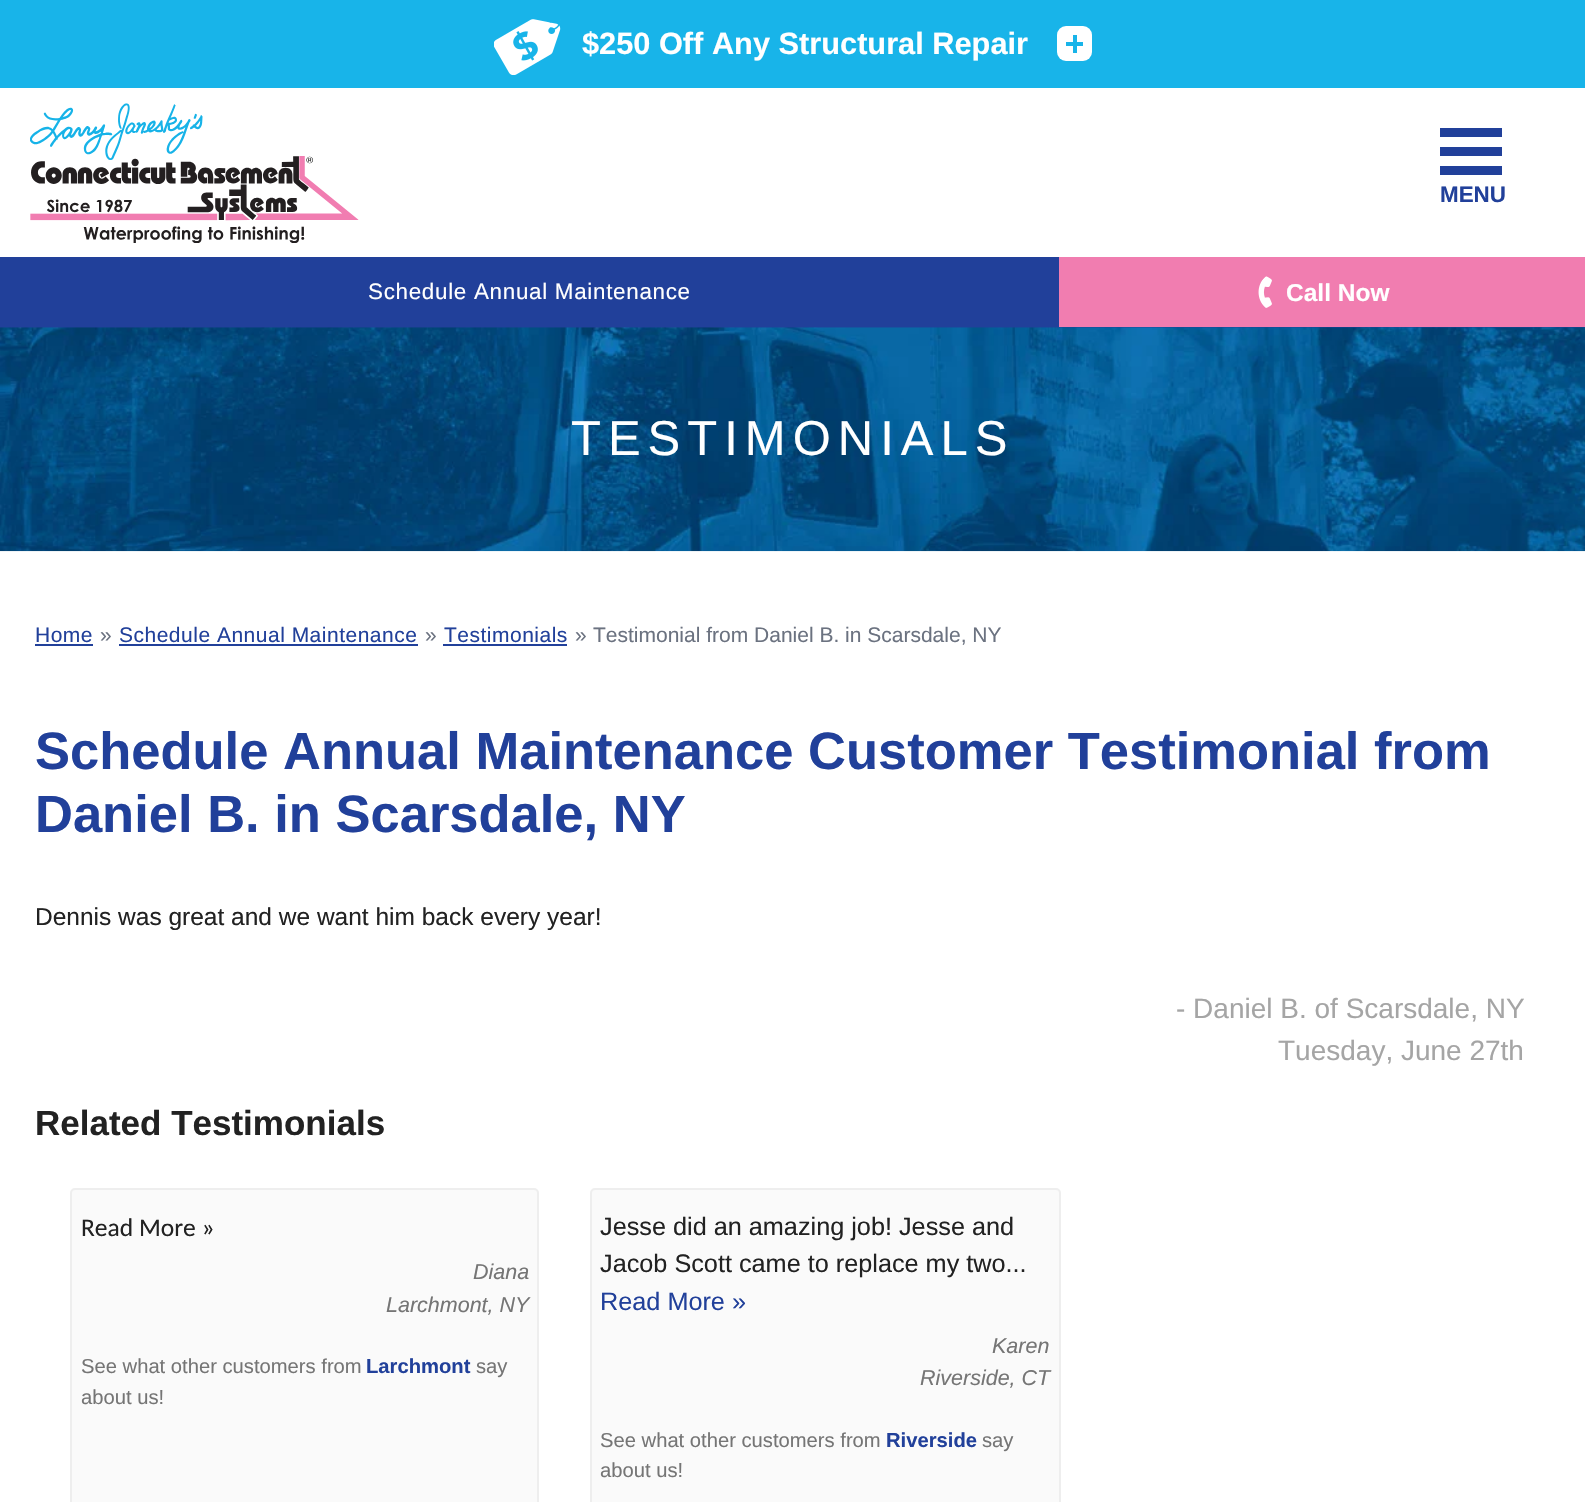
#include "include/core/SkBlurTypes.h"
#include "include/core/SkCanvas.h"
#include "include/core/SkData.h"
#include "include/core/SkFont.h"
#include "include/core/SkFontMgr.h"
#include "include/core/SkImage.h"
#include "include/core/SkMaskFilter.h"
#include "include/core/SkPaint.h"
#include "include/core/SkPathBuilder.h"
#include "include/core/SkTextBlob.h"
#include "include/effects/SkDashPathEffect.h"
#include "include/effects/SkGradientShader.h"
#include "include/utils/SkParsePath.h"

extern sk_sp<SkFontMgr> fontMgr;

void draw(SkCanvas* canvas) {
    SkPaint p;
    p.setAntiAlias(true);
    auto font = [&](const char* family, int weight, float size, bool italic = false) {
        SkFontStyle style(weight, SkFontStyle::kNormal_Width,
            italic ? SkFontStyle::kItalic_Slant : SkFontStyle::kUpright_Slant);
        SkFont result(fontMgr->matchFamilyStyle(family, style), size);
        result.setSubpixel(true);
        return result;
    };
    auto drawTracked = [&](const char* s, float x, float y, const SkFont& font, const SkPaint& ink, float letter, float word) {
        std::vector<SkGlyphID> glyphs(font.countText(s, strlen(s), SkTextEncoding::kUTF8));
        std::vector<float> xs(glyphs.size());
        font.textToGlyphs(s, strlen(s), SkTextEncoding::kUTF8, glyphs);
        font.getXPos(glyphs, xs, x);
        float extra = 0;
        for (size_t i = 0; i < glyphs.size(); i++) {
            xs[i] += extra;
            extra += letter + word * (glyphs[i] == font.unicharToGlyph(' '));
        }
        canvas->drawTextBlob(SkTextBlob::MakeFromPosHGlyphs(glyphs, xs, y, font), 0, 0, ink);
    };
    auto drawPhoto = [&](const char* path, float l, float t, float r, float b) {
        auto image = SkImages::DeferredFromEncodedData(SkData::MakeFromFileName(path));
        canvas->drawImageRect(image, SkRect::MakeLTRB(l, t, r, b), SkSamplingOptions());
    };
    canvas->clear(0xFFFFFFFF);
    p.setColor(0xFF18B4E9);
    canvas->drawRect(SkRect::MakeLTRB(0, 0, 1585, 88), p);
    drawPhoto("media/1.png", 494, 19, 561, 75);
    auto font1 = font("Liberation Sans", 700, 30.75f);
    p.setColor(0xFFFFFFFF);
    canvas->drawString("$250 Off Any Structural Repair", 582, 54, font1, p);
    canvas->drawRoundRect(SkRect::MakeLTRB(1057, 26, 1092, 61), 9, 9, p);
    p.setColor(0xFF18B4E9);
    canvas->drawRect(SkRect::MakeLTRB(1066, 42, 1083, 46), p);
    canvas->drawRect(SkRect::MakeLTRB(1073, 35, 1077, 53), p);
    drawPhoto("media/2.png", 30, 103, 359, 243);
    {
        const struct { float l, t, r, b; SkColor color; } items[] = {
            {1440, 128, 1502, 137, 0xFF21409A},
            {1440, 147, 1502, 156, 0xFF21409A},
            {1440, 166, 1502, 175, 0xFF21409A},
        };
        for (auto [l, t, r, b, color] : items) {
            p.setColor(color);
            canvas->drawRect(SkRect::MakeLTRB(l, t, r, b), p);
        }
    }
    auto font2 = font("Liberation Sans", 700, 22.4f);
    canvas->drawString("MENU", 1440, 202, font2, p);
    canvas->drawRect(SkRect::MakeLTRB(0, 257, 1059, 327), p);
    auto font3 = font("Liberation Sans", 400, 22.4f);
    p.setColor(0xFFFFFFFF);
    drawTracked("Schedule Annual Maintenance", 368, 299, font3, p, 0.7f, 0);
    p.setColor(0xFFF17DB0);
    canvas->drawRect(SkRect::MakeLTRB(1059, 257, 1585, 327), p);
    drawPhoto("media/3.png", 1258, 276, 1272, 308);
    auto font4 = font("Liberation Sans", 700, 24.5f);
    p.setColor(0xFFFFFFFF);
    canvas->drawString("Call Now", 1286, 301, font4, p);
    p.setColor(0xFF21409A);
    canvas->drawRect(SkRect::MakeLTRB(0, 327, 1585, 328), p);
    drawPhoto("media/4.png", 0, 327, 1585, 552);
    auto font5 = font("Liberation Sans", 400, 49);
    p.setColor(0xFFFFFFFF);
    drawTracked("TESTIMONIALS", 571, 455, font5, p, 7, 0);
    auto font6 = font("Liberation Sans", 400, 21);
    p.setColor(0xFF21409A);
    drawTracked("Home", 35, 642, font6, p, 0.5f, 0);
    canvas->drawRect(SkRect::MakeLTRB(35, 644, 93, 646), p);
    p.setColor(0xFF6B7280);
    canvas->drawString("»", 100, 642, font6, p);
    p.setColor(0xFF21409A);
    drawTracked("Schedule Annual Maintenance", 119, 642, font6, p, 0.5f, 0);
    canvas->drawRect(SkRect::MakeLTRB(119, 644, 418, 646), p);
    p.setColor(0xFF6B7280);
    canvas->drawString("»", 425, 642, font6, p);
    p.setColor(0xFF21409A);
    drawTracked("Testimonials", 444, 642, font6, p, 0.5f, 0);
    canvas->drawRect(SkRect::MakeLTRB(443, 644, 567, 646), p);
    p.setColor(0xFF6B7280);
    canvas->drawString("»", 575, 642, font6, p);
    canvas->drawString("Testimonial from Daniel B. in Scarsdale, NY", 593, 642, font6, p);
    auto font7 = font("Liberation Sans", 700, 52.5f);
    p.setColor(0xFF21409A);
    canvas->drawString("Schedule Annual Maintenance Customer Testimonial from", 35, 769, font7, p);
    canvas->drawString("Daniel B. in Scarsdale, NY", 35, 832, font7, p);
    auto font8 = font("Liberation Sans", 400, 24.5f);
    p.setColor(0xFF222222);
    canvas->drawString("Dennis was great and we want him back every year!", 35, 925, font8, p);
    auto font9 = font("Liberation Sans", 400, 28);
    p.setColor(0xFFA5A5A5);
    canvas->drawString("- Daniel B. of Scarsdale, NY", 1176, 1018, font9, p);
    canvas->drawString("Tuesday, June 27th", 1278, 1060, font9, p);
    auto font10 = font("Liberation Sans", 700, 35);
    p.setColor(0xFF222222);
    canvas->drawString("Related Testimonials", 35, 1135, font10, p);
    p.setColor(0xFFFAFAFA);
    canvas->drawRoundRect(SkRect::MakeLTRB(71, 1189, 538, 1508), 4, 4, p);
    p.setStyle(SkPaint::kStroke_Style);
    p.setStrokeWidth(2);
    p.setColor(0xFFEEEEEE);
    canvas->drawRoundRect(SkRect::MakeLTRB(71, 1189, 538, 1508), 4, 4, p);
    auto font11 = font("Carlito", 400, 25.5f);
    p.setStyle(SkPaint::kFill_Style);
    p.setColor(0xFF222222);
    canvas->drawString("Read More »", 81, 1236, font11, p);
    auto font12 = font("Liberation Sans", 400, 21.5f, true);
    p.setColor(0xFF757575);
    canvas->drawString("Diana", 473, 1279, font12, p);
    canvas->drawString("Larchmont, NY", 386, 1312, font12, p);
    auto font13 = font("Liberation Sans", 400, 20.2f);
    canvas->drawString("See what other customers from", 81, 1373, font13, p);
    auto font14 = font("Liberation Sans", 700, 20.2f);
    p.setColor(0xFF21409A);
    canvas->drawString("Larchmont", 366, 1373, font14, p);
    p.setColor(0xFF757575);
    canvas->drawString("say", 476, 1373, font13, p);
    canvas->drawString("about us!", 81, 1404, font13, p);
    p.setColor(0xFFFAFAFA);
    canvas->drawRoundRect(SkRect::MakeLTRB(591, 1189, 1060, 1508), 4, 4, p);
    p.setStyle(SkPaint::kStroke_Style);
    p.setColor(0xFFEEEEEE);
    canvas->drawRoundRect(SkRect::MakeLTRB(591, 1189, 1060, 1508), 4, 4, p);
    auto font15 = font("Liberation Sans", 400, 25.25f);
    p.setStyle(SkPaint::kFill_Style);
    p.setColor(0xFF222222);
    canvas->drawString("Jesse did an amazing job! Jesse and", 600, 1235, font15, p);
    canvas->drawString("Jacob Scott came to replace my two...", 600, 1272, font15, p);
    p.setColor(0xFF21409A);
    canvas->drawString("Read More »", 600, 1310, font15, p);
    p.setColor(0xFF757575);
    canvas->drawString("Karen", 992, 1353, font12, p);
    canvas->drawString("Riverside, CT", 920, 1385, font12, p);
    canvas->drawString("See what other customers from", 600, 1447, font13, p);
    p.setColor(0xFF21409A);
    canvas->drawString("Riverside", 886, 1447, font14, p);
    p.setColor(0xFF757575);
    canvas->drawString("say", 982, 1447, font13, p);
    canvas->drawString("about us!", 600, 1477, font13, p);
}
